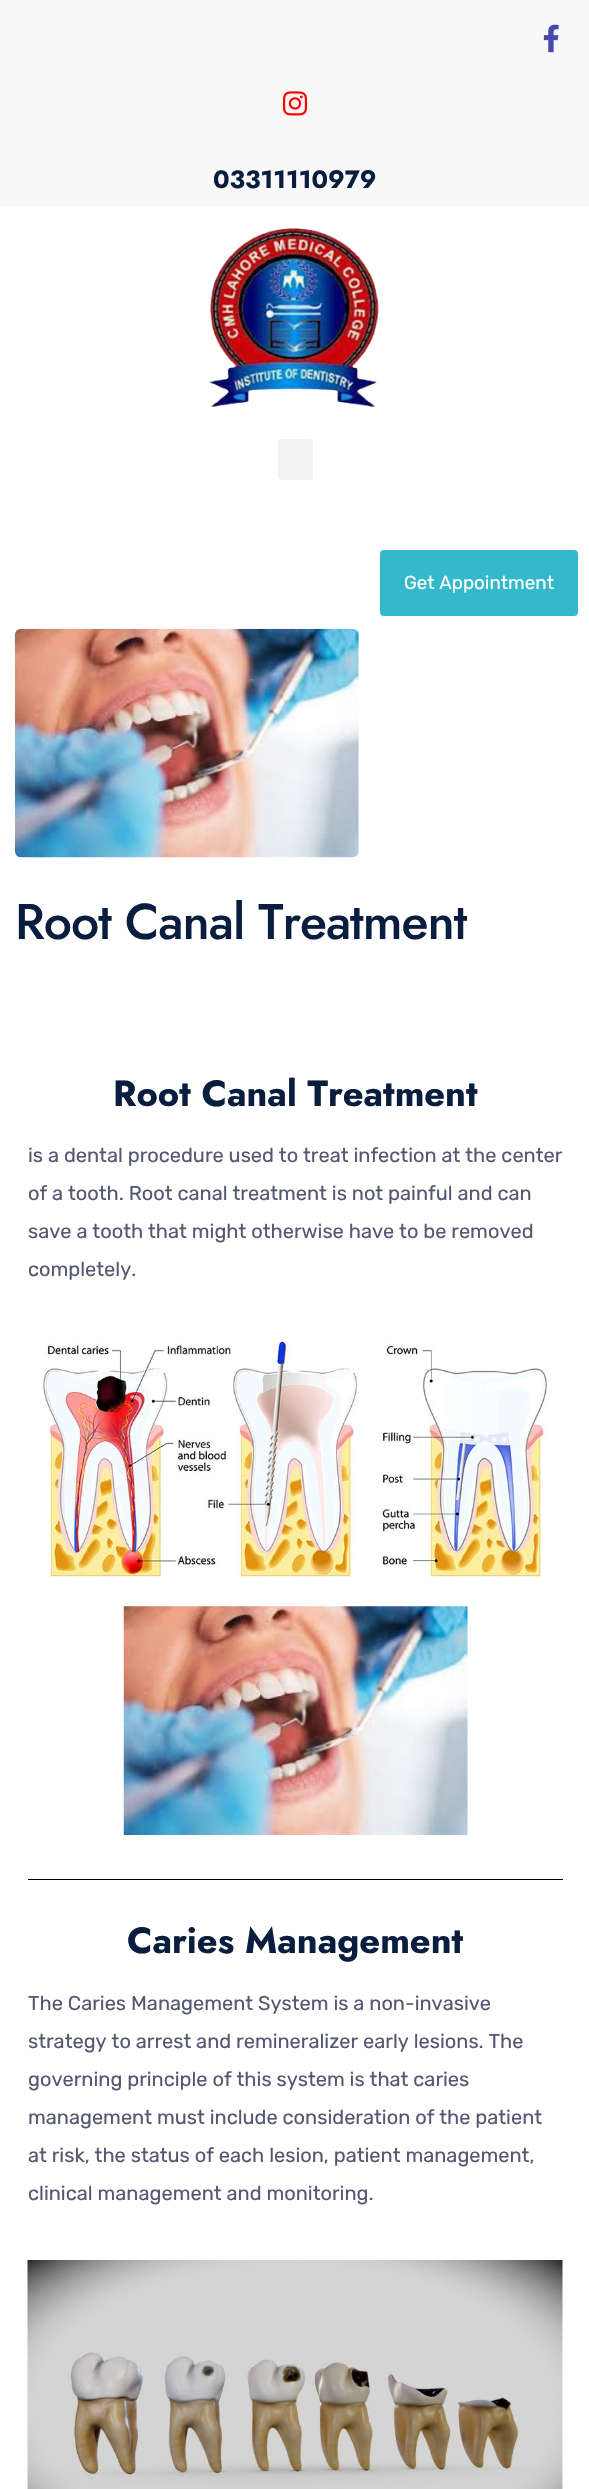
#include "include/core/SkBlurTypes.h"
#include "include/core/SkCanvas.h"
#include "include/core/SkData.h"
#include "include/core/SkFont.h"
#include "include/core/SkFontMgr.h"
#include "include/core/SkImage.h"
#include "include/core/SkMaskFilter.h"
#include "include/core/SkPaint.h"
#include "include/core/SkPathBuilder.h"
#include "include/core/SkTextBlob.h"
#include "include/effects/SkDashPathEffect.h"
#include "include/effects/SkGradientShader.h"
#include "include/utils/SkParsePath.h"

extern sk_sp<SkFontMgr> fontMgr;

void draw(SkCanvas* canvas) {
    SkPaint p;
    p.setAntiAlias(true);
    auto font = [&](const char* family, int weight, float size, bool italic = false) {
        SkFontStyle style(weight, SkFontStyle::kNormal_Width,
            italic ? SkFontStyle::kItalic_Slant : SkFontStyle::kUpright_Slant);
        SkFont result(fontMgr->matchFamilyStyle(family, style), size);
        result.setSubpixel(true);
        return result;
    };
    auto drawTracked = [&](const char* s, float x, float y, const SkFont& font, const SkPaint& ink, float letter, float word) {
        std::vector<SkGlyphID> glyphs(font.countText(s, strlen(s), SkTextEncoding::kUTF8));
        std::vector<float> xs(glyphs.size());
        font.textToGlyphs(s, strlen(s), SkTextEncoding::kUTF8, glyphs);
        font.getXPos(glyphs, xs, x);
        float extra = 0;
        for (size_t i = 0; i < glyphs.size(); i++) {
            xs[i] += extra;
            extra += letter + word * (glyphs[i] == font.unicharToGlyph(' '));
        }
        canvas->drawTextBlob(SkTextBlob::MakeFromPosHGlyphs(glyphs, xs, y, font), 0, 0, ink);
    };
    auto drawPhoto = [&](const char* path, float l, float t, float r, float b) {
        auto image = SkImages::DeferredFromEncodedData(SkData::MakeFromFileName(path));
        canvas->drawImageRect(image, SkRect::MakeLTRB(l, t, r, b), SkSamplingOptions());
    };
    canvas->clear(0xFFFFFFFF);
    p.setColor(0xFFF8F8F8);
    canvas->drawRect(SkRect::MakeLTRB(0, 0, 589, 206), p);
    drawPhoto("media/1.png", 543, 24, 559, 53);
    drawPhoto("media/2.png", 282, 91, 308, 116);
    auto font1 = font("Jost", 700, 25);
    p.setColor(0xFF091D3E);
    canvas->drawString("03311110979", 213, 188, font1, p);
    drawPhoto("media/3.png", 209, 228, 379, 407);
    p.setColor(0xFFF2F2F2);
    canvas->drawRoundRect(SkRect::MakeLTRB(278, 439, 313, 480), 4, 4, p);
    p.setColor(0xFF33B9CB);
    canvas->drawRoundRect(SkRect::MakeLTRB(380, 550, 578, 616), 4, 4, p);
    auto font2 = font("Rubik", 400, 18.75f);
    p.setColor(0xFFFFFFFF);
    canvas->drawString("Get Appointment", 404, 589, font2, p);
    drawPhoto("media/4.png", 15, 628, 359, 858);
    auto font3 = font("Jost", 500, 50);
    p.setColor(0xFF091D3E);
    drawTracked("Root Canal Treatment", 15, 939, font3, p, -1, 0);
    auto font4 = font("Jost", 700, 36.25f);
    canvas->drawString("Root Canal Treatment", 113, 1106, font4, p);
    auto font5 = font("Rubik", 400, 20);
    p.setColor(0xFF565872);
    {
        const struct { const char* s; float x, y; } items[] = {
            {"is a dental procedure used to treat infection at the center", 28, 1162},
            {"of a tooth. Root canal treatment is not painful and can", 28, 1200},
            {"save a tooth that might otherwise have to be removed", 28, 1238},
            {"completely.", 28, 1276},
        };
        for (auto [s, x, y] : items) {
            canvas->drawString(s, x, y, font5, p);
        }
    }
    drawPhoto("media/5.png", 42, 1336, 549, 1581);
    drawPhoto("media/6.png", 123, 1606, 468, 1835);
    p.setColor(0xFF000000);
    canvas->drawRect(SkRect::MakeLTRB(28, 1879, 563, 1880), p);
    p.setColor(0xFF091D3E);
    canvas->drawString("Caries Management", 127, 1953, font4, p);
    p.setColor(0xFF565872);
    {
        const struct { const char* s; float x, y; } items[] = {
            {"The Caries Management System is a non-invasive", 28, 2010},
            {"strategy to arrest and remineralizer early lesions. The", 28, 2048},
            {"governing principle of this system is that caries", 28, 2086},
            {"management must include consideration of the patient", 28, 2124},
            {"at risk, the status of each lesion, patient management,", 28, 2162},
            {"clinical management and monitoring.", 28, 2200},
        };
        for (auto [s, x, y] : items) {
            canvas->drawString(s, x, y, font5, p);
        }
    }
    drawPhoto("media/7.png", 27, 2260, 563, 2489);
}
